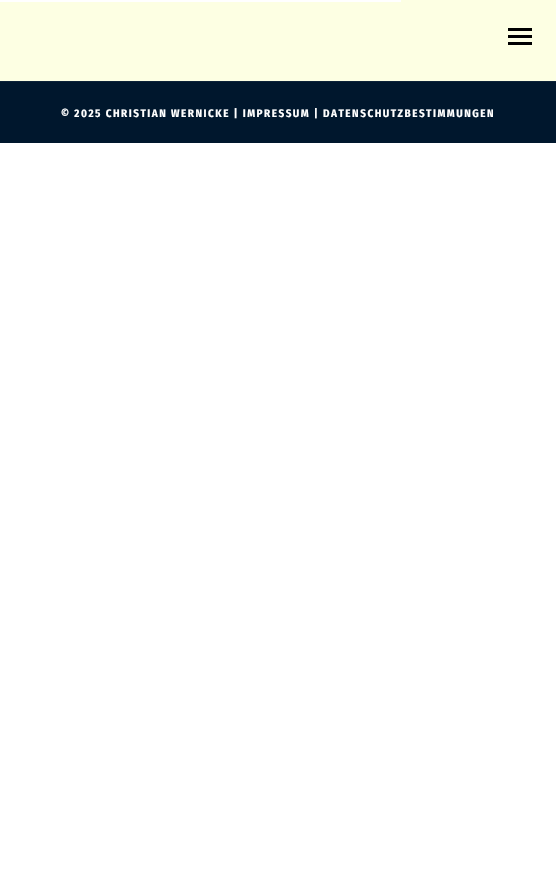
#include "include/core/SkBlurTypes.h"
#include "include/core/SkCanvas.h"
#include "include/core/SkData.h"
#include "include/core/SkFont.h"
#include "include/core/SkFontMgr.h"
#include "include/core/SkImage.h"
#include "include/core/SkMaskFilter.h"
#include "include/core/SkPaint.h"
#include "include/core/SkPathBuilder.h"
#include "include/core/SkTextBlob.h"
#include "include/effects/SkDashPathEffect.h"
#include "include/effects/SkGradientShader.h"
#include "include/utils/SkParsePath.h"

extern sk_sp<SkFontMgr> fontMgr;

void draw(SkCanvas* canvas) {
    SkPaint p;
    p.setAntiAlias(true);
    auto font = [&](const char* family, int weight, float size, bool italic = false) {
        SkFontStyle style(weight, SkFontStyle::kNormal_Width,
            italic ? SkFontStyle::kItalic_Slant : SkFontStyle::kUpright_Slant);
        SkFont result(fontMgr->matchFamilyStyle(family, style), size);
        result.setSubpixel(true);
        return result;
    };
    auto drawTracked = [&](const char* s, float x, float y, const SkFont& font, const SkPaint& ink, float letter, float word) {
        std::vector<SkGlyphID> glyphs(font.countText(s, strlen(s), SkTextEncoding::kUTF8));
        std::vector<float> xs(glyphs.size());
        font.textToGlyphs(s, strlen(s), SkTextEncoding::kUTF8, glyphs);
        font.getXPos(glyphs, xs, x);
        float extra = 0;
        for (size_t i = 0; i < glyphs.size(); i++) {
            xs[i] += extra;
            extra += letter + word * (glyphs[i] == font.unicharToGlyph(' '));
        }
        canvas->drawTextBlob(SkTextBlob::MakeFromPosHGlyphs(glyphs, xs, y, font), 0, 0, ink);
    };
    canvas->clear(0xFFFFFFFF);
    {
        const struct { float l, t, r, b; SkColor color; } items[] = {
            {0, 0, 556, 81, 0xFFFDFFE3},
            {508, 28, 532, 31, 0xFF000000},
            {508, 35, 532, 38, 0xFF000000},
            {508, 42, 532, 45, 0xFF000000},
            {0, 0, 401, 2, 0xFFFFFFFF},
            {0, 82, 556, 143, 0xFF00172D},
            {0, 81, 556, 82, 0xFF0D2338},
        };
        for (auto [l, t, r, b, color] : items) {
            p.setColor(color);
            canvas->drawRect(SkRect::MakeLTRB(l, t, r, b), p);
        }
    }
    auto font1 = font("Fira Sans Condensed", 700, 11);
    p.setColor(0xFFFFFFFF);
    drawTracked("© 2025 CHRISTIAN WERNICKE | IMPRESSUM | DATENSCHUTZBESTIMMUNGEN", 61, 117, font1, p, 1.5f, 0);
}
